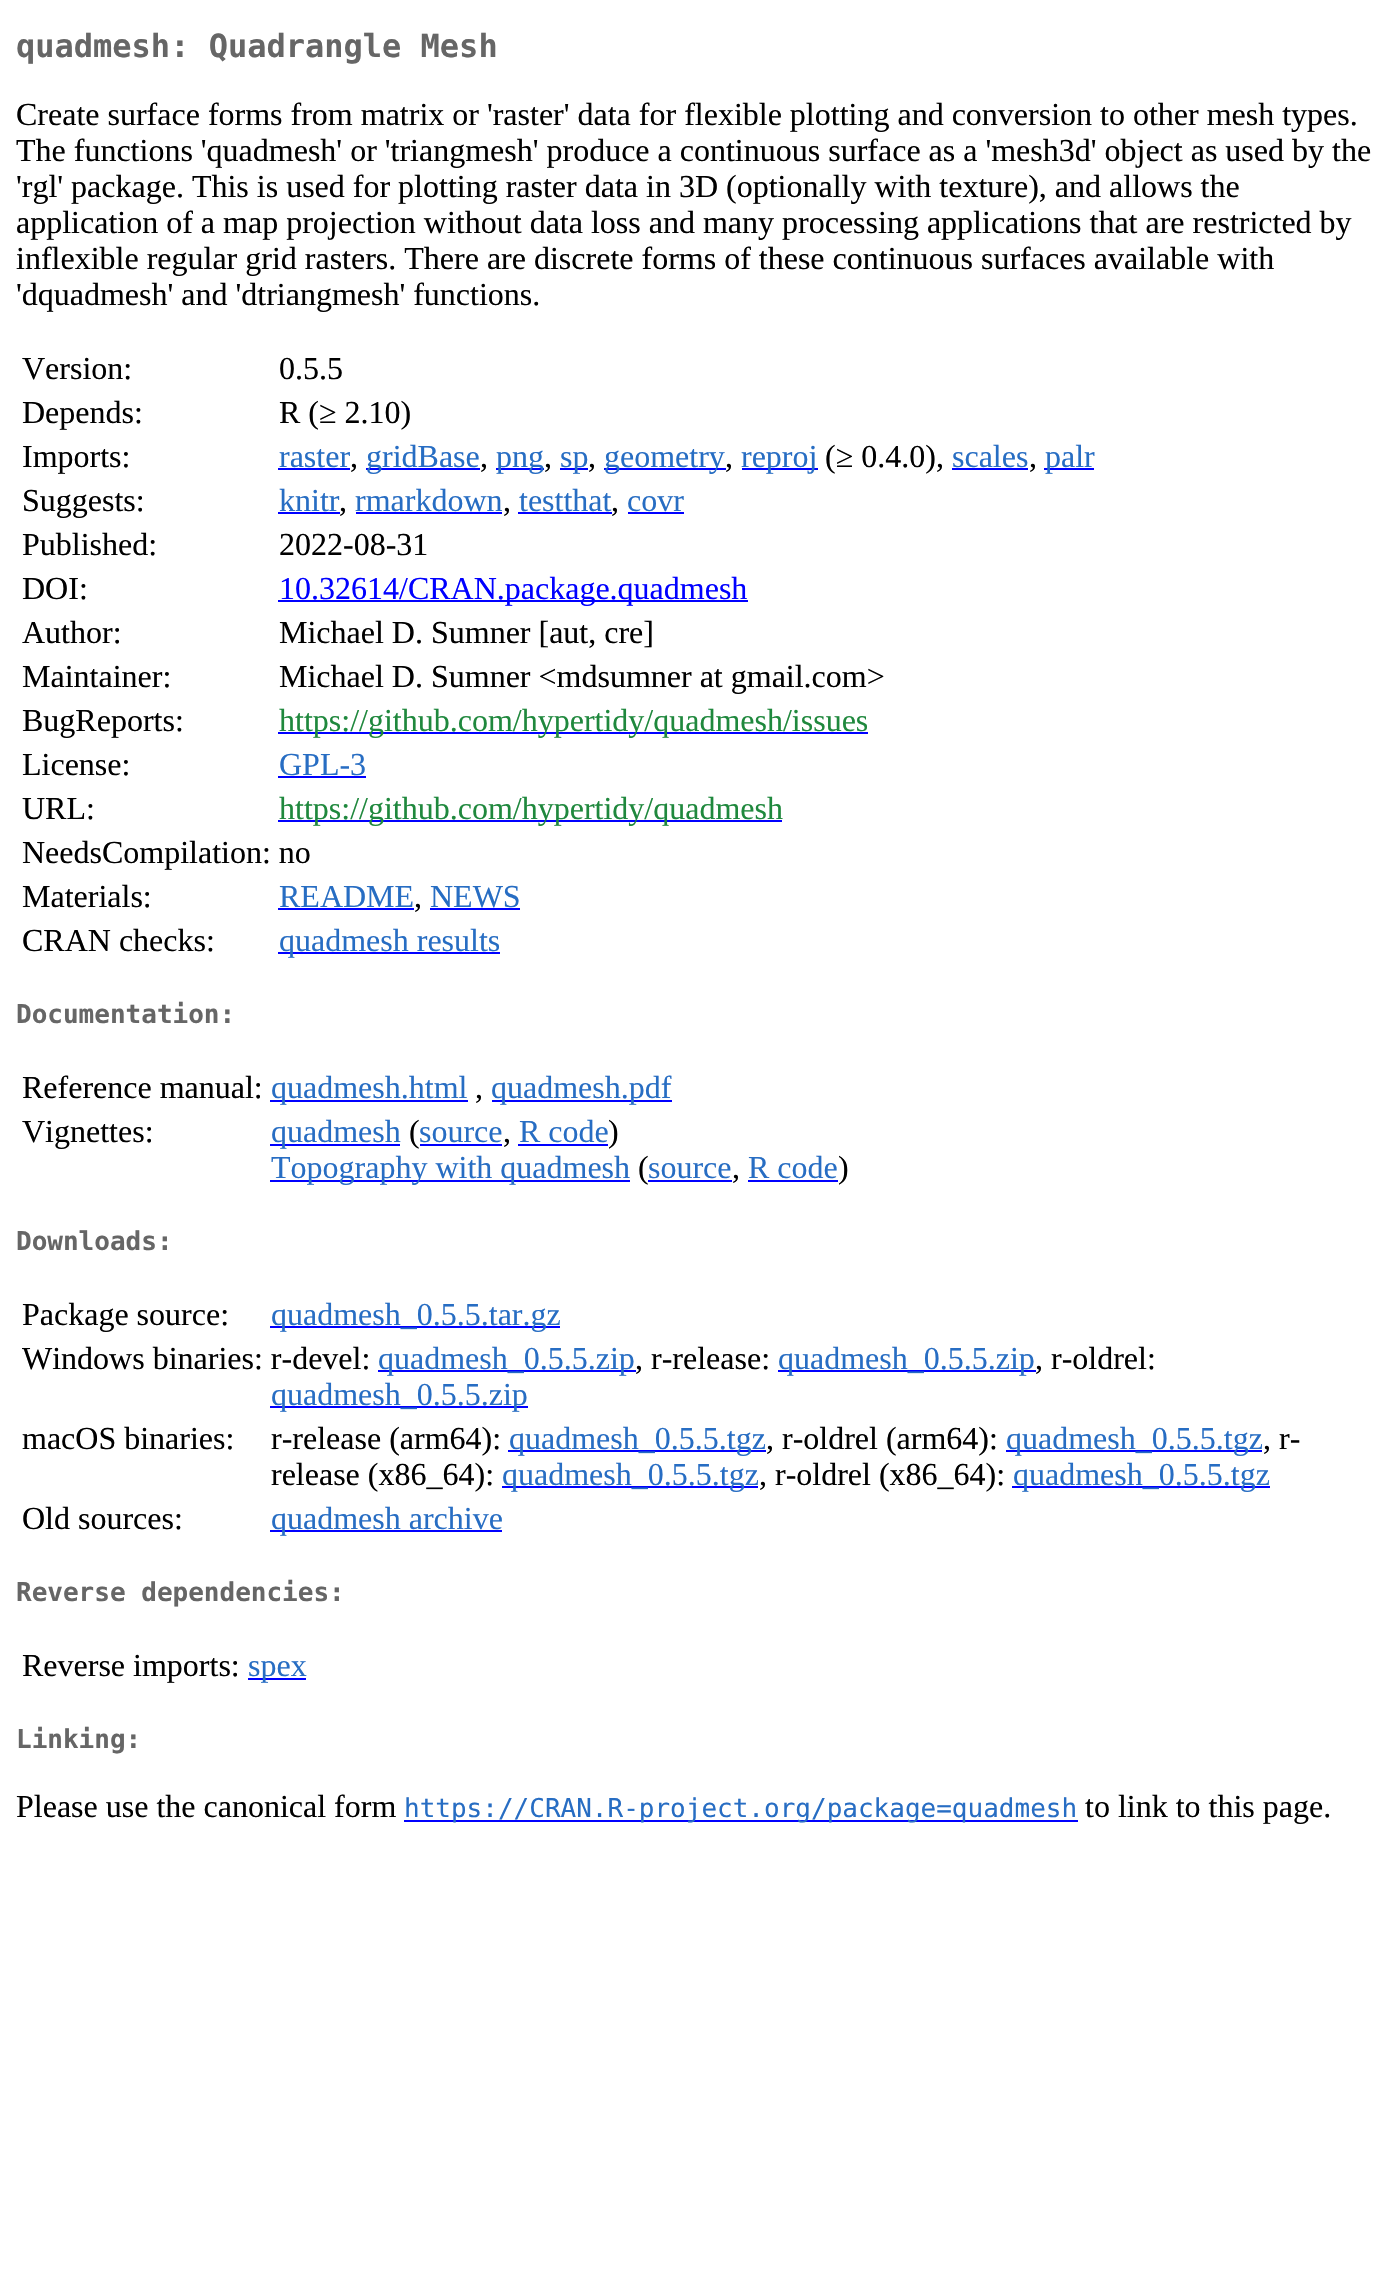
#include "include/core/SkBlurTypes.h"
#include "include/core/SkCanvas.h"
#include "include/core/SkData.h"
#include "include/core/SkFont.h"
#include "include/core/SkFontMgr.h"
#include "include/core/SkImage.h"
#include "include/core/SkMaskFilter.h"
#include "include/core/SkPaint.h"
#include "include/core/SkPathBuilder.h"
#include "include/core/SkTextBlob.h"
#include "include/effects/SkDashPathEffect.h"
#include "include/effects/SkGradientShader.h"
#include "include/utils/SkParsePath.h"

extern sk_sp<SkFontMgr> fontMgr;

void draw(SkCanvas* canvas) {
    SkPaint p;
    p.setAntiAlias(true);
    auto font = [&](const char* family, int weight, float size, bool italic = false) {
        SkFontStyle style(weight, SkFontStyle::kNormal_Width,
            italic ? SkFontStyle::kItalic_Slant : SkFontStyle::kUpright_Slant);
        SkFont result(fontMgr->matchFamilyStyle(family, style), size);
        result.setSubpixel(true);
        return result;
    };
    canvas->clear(0xFFFFFFFF);
    auto font1 = font("DejaVu Sans Mono", 700, 32);
    p.setColor(0xFF666666);
    canvas->drawString("quadmesh: Quadrangle Mesh", 16, 57, font1, p);
    auto font2 = font("Liberation Serif", 400, 32);
    p.setColor(0xFF000000);
    {
        const struct { const char* s; float x, y; } items[] = {
            {"Create surface forms from matrix or 'raster' data for flexible plotting and conversion to other mesh types.", 16, 125},
            {"The functions 'quadmesh' or 'triangmesh' produce a continuous surface as a 'mesh3d' object as used by the", 16, 161},
            {"'rgl' package. This is used for plotting raster data in 3D (optionally with texture), and allows the", 16, 197},
            {"application of a map projection without data loss and many processing applications that are restricted by", 16, 233},
            {"inflexible regular grid rasters. There are discrete forms of these continuous surfaces available with", 16, 269},
            {"'dquadmesh' and 'dtriangmesh' functions.", 16, 305},
            {"Version:", 22, 379},
            {"0.5.5", 279, 379},
            {"Depends:", 22, 423},
            {"R (≥ 2.10)", 279, 423},
            {"Imports:", 22, 467},
        };
        for (auto [s, x, y] : items) {
            canvas->drawString(s, x, y, font2, p);
        }
    }
    p.setColor(0xFF276DC3);
    canvas->drawString("raster", 279, 467, font2, p);
    p.setColor(0xFF0000FF);
    canvas->drawRect(SkRect::MakeLTRB(278, 468, 350, 470), p);
    p.setColor(0xFF000000);
    canvas->drawString(",", 350, 467, font2, p);
    p.setColor(0xFF0000FF);
    canvas->drawRect(SkRect::MakeLTRB(366, 468, 480, 470), p);
    p.setColor(0xFF276DC3);
    canvas->drawString("gridBase", 366, 467, font2, p);
    p.setColor(0xFF000000);
    canvas->drawString(",", 480, 467, font2, p);
    p.setColor(0xFF0000FF);
    canvas->drawRect(SkRect::MakeLTRB(496, 468, 544, 470), p);
    p.setColor(0xFF276DC3);
    canvas->drawString("png", 496, 467, font2, p);
    p.setColor(0xFF000000);
    canvas->drawString(",", 544, 467, font2, p);
    p.setColor(0xFF0000FF);
    canvas->drawRect(SkRect::MakeLTRB(560, 468, 588, 470), p);
    p.setColor(0xFF276DC3);
    canvas->drawString("sp", 560, 467, font2, p);
    p.setColor(0xFF000000);
    canvas->drawString(",", 588, 467, font2, p);
    p.setColor(0xFF0000FF);
    canvas->drawRect(SkRect::MakeLTRB(604, 468, 726, 470), p);
    p.setColor(0xFF276DC3);
    canvas->drawString("geometry", 604, 467, font2, p);
    p.setColor(0xFF000000);
    canvas->drawString(",", 725, 467, font2, p);
    p.setColor(0xFF0000FF);
    canvas->drawRect(SkRect::MakeLTRB(742, 468, 818, 470), p);
    p.setColor(0xFF276DC3);
    canvas->drawString("reproj", 741, 467, font2, p);
    p.setColor(0xFF000000);
    canvas->drawString("(≥ 0.4.0),", 825, 467, font2, p);
    p.setColor(0xFF276DC3);
    canvas->drawString("scales", 952, 467, font2, p);
    p.setColor(0xFF0000FF);
    canvas->drawRect(SkRect::MakeLTRB(952, 468, 1028, 470), p);
    p.setColor(0xFF000000);
    canvas->drawString(",", 1029, 467, font2, p);
    p.setColor(0xFF0000FF);
    canvas->drawRect(SkRect::MakeLTRB(1044, 468, 1094, 470), p);
    p.setColor(0xFF276DC3);
    canvas->drawString("palr", 1045, 467, font2, p);
    p.setColor(0xFF000000);
    canvas->drawString("Suggests:", 22, 511, font2, p);
    p.setColor(0xFF276DC3);
    canvas->drawString("knitr", 279, 511, font2, p);
    p.setColor(0xFF0000FF);
    canvas->drawRect(SkRect::MakeLTRB(278, 512, 340, 514), p);
    p.setColor(0xFF000000);
    canvas->drawString(",", 339, 511, font2, p);
    p.setColor(0xFF276DC3);
    canvas->drawString("rmarkdown", 355, 511, font2, p);
    p.setColor(0xFF0000FF);
    canvas->drawRect(SkRect::MakeLTRB(356, 512, 502, 514), p);
    p.setColor(0xFF000000);
    canvas->drawString(",", 503, 511, font2, p);
    p.setColor(0xFF276DC3);
    canvas->drawString("testthat", 519, 511, font2, p);
    p.setColor(0xFF0000FF);
    canvas->drawRect(SkRect::MakeLTRB(518, 512, 612, 514), p);
    p.setColor(0xFF000000);
    canvas->drawString(",", 611, 511, font2, p);
    p.setColor(0xFF276DC3);
    canvas->drawString("covr", 627, 511, font2, p);
    p.setColor(0xFF0000FF);
    canvas->drawRect(SkRect::MakeLTRB(628, 512, 684, 514), p);
    p.setColor(0xFF000000);
    {
        const struct { const char* s; float x, y; } items[] = {
            {"Published:", 22, 555},
            {"2022-08-31", 279, 555},
            {"DOI:", 22, 599},
        };
        for (auto [s, x, y] : items) {
            canvas->drawString(s, x, y, font2, p);
        }
    }
    p.setColor(0xFF0000FF);
    canvas->drawRect(SkRect::MakeLTRB(278, 600, 748, 602), p);
    canvas->drawString("10.32614/CRAN.package.quadmesh", 279, 599, font2, p);
    p.setColor(0xFF000000);
    {
        const struct { const char* s; float x, y; } items[] = {
            {"Author:", 22, 643},
            {"Michael D. Sumner [aut, cre]", 279, 643},
            {"Maintainer:", 22, 687},
            {"Michael D. Sumner <mdsumner at gmail.com>", 279, 687},
            {"BugReports:", 22, 731},
        };
        for (auto [s, x, y] : items) {
            canvas->drawString(s, x, y, font2, p);
        }
    }
    p.setColor(0xFF0000FF);
    canvas->drawRect(SkRect::MakeLTRB(278, 732, 868, 734), p);
    p.setColor(0xFF1F883D);
    canvas->drawString("https://github.com/hypertidy/quadmesh/issues", 279, 731, font2, p);
    p.setColor(0xFF000000);
    canvas->drawString("License:", 22, 775, font2, p);
    p.setColor(0xFF276DC3);
    canvas->drawString("GPL-3", 279, 775, font2, p);
    p.setColor(0xFF0000FF);
    canvas->drawRect(SkRect::MakeLTRB(278, 776, 366, 778), p);
    p.setColor(0xFF000000);
    canvas->drawString("URL:", 22, 819, font2, p);
    p.setColor(0xFF0000FF);
    canvas->drawRect(SkRect::MakeLTRB(278, 820, 782, 822), p);
    p.setColor(0xFF1F883D);
    canvas->drawString("https://github.com/hypertidy/quadmesh", 279, 819, font2, p);
    p.setColor(0xFF000000);
    canvas->drawString("NeedsCompilation: no", 22, 863, font2, p);
    canvas->drawString("Materials:", 22, 907, font2, p);
    p.setColor(0xFF276DC3);
    canvas->drawString("README", 279, 907, font2, p);
    p.setColor(0xFF0000FF);
    canvas->drawRect(SkRect::MakeLTRB(278, 908, 414, 910), p);
    p.setColor(0xFF000000);
    canvas->drawString(",", 414, 907, font2, p);
    p.setColor(0xFF276DC3);
    canvas->drawString("NEWS", 430, 907, font2, p);
    p.setColor(0xFF0000FF);
    canvas->drawRect(SkRect::MakeLTRB(430, 908, 520, 910), p);
    p.setColor(0xFF000000);
    canvas->drawString("CRAN checks:", 22, 951, font2, p);
    p.setColor(0xFF0000FF);
    canvas->drawRect(SkRect::MakeLTRB(278, 952, 500, 954), p);
    p.setColor(0xFF276DC3);
    canvas->drawString("quadmesh results", 279, 951, font2, p);
    auto font3 = font("DejaVu Sans Mono", 700, 26);
    p.setColor(0xFF666666);
    canvas->drawString("Documentation:", 16, 1023, font3, p);
    p.setColor(0xFF000000);
    canvas->drawString("Reference manual:", 22, 1098, font2, p);
    p.setColor(0xFF0000FF);
    canvas->drawRect(SkRect::MakeLTRB(270, 1100, 468, 1102), p);
    p.setColor(0xFF276DC3);
    canvas->drawString("quadmesh.html", 271, 1098, font2, p);
    p.setColor(0xFF000000);
    canvas->drawString(",", 475, 1098, font2, p);
    p.setColor(0xFF0000FF);
    canvas->drawRect(SkRect::MakeLTRB(492, 1100, 672, 1102), p);
    p.setColor(0xFF276DC3);
    canvas->drawString("quadmesh.pdf", 491, 1098, font2, p);
    p.setColor(0xFF000000);
    canvas->drawString("Vignettes:", 22, 1142, font2, p);
    p.setColor(0xFF0000FF);
    canvas->drawRect(SkRect::MakeLTRB(270, 1144, 400, 1146), p);
    p.setColor(0xFF276DC3);
    canvas->drawString("quadmesh", 271, 1142, font2, p);
    p.setColor(0xFF000000);
    canvas->drawString("(", 409, 1142, font2, p);
    p.setColor(0xFF276DC3);
    canvas->drawString("source", 419, 1142, font2, p);
    p.setColor(0xFF0000FF);
    canvas->drawRect(SkRect::MakeLTRB(420, 1144, 502, 1146), p);
    p.setColor(0xFF000000);
    canvas->drawString(",", 503, 1142, font2, p);
    p.setColor(0xFF276DC3);
    canvas->drawString("R code", 519, 1142, font2, p);
    p.setColor(0xFF0000FF);
    canvas->drawRect(SkRect::MakeLTRB(518, 1144, 608, 1146), p);
    p.setColor(0xFF000000);
    canvas->drawString(")", 608, 1142, font2, p);
    p.setColor(0xFF0000FF);
    canvas->drawRect(SkRect::MakeLTRB(270, 1180, 630, 1182), p);
    p.setColor(0xFF276DC3);
    canvas->drawString("Topography with quadmesh", 271, 1178, font2, p);
    p.setColor(0xFF000000);
    canvas->drawString("(", 638, 1178, font2, p);
    p.setColor(0xFF276DC3);
    canvas->drawString("source", 648, 1178, font2, p);
    p.setColor(0xFF0000FF);
    canvas->drawRect(SkRect::MakeLTRB(648, 1180, 732, 1182), p);
    p.setColor(0xFF000000);
    canvas->drawString(",", 732, 1178, font2, p);
    p.setColor(0xFF276DC3);
    canvas->drawString("R code", 748, 1178, font2, p);
    p.setColor(0xFF0000FF);
    canvas->drawRect(SkRect::MakeLTRB(748, 1180, 838, 1182), p);
    p.setColor(0xFF000000);
    canvas->drawString(")", 838, 1178, font2, p);
    p.setColor(0xFF666666);
    canvas->drawString("Downloads:", 16, 1250, font3, p);
    p.setColor(0xFF000000);
    canvas->drawString("Package source:", 22, 1325, font2, p);
    p.setColor(0xFF0000FF);
    canvas->drawRect(SkRect::MakeLTRB(270, 1326, 560, 1328), p);
    p.setColor(0xFF276DC3);
    canvas->drawString("quadmesh_0.5.5.tar.gz", 271, 1325, font2, p);
    p.setColor(0xFF000000);
    canvas->drawString("Windows binaries: r-devel:", 22, 1369, font2, p);
    p.setColor(0xFF0000FF);
    canvas->drawRect(SkRect::MakeLTRB(378, 1370, 636, 1372), p);
    p.setColor(0xFF276DC3);
    canvas->drawString("quadmesh_0.5.5.zip", 378, 1369, font2, p);
    p.setColor(0xFF000000);
    canvas->drawString(", r-release:", 635, 1369, font2, p);
    p.setColor(0xFF0000FF);
    canvas->drawRect(SkRect::MakeLTRB(778, 1370, 1036, 1372), p);
    p.setColor(0xFF276DC3);
    canvas->drawString("quadmesh_0.5.5.zip", 778, 1369, font2, p);
    p.setColor(0xFF000000);
    canvas->drawString(", r-oldrel:", 1035, 1369, font2, p);
    p.setColor(0xFF0000FF);
    canvas->drawRect(SkRect::MakeLTRB(270, 1406, 528, 1408), p);
    p.setColor(0xFF276DC3);
    canvas->drawString("quadmesh_0.5.5.zip", 271, 1405, font2, p);
    p.setColor(0xFF000000);
    canvas->drawString("macOS binaries:", 22, 1449, font2, p);
    canvas->drawString("r-release (arm64):", 271, 1449, font2, p);
    p.setColor(0xFF0000FF);
    canvas->drawRect(SkRect::MakeLTRB(508, 1450, 766, 1452), p);
    p.setColor(0xFF276DC3);
    canvas->drawString("quadmesh_0.5.5.tgz", 509, 1449, font2, p);
    p.setColor(0xFF000000);
    canvas->drawString(", r-oldrel (arm64):", 766, 1449, font2, p);
    p.setColor(0xFF0000FF);
    canvas->drawRect(SkRect::MakeLTRB(1006, 1450, 1262, 1452), p);
    p.setColor(0xFF276DC3);
    canvas->drawString("quadmesh_0.5.5.tgz", 1006, 1449, font2, p);
    p.setColor(0xFF000000);
    canvas->drawString(", r-", 1263, 1449, font2, p);
    canvas->drawString("release (x86_64):", 271, 1485, font2, p);
    p.setColor(0xFF0000FF);
    canvas->drawRect(SkRect::MakeLTRB(502, 1486, 758, 1488), p);
    p.setColor(0xFF276DC3);
    canvas->drawString("quadmesh_0.5.5.tgz", 502, 1485, font2, p);
    p.setColor(0xFF000000);
    canvas->drawString(", r-oldrel (x86_64):", 759, 1485, font2, p);
    p.setColor(0xFF0000FF);
    canvas->drawRect(SkRect::MakeLTRB(1012, 1486, 1270, 1488), p);
    p.setColor(0xFF276DC3);
    canvas->drawString("quadmesh_0.5.5.tgz", 1013, 1485, font2, p);
    p.setColor(0xFF000000);
    canvas->drawString("Old sources:", 22, 1529, font2, p);
    p.setColor(0xFF0000FF);
    canvas->drawRect(SkRect::MakeLTRB(270, 1530, 502, 1532), p);
    p.setColor(0xFF276DC3);
    canvas->drawString("quadmesh archive", 271, 1529, font2, p);
    p.setColor(0xFF666666);
    canvas->drawString("Reverse dependencies:", 16, 1601, font3, p);
    p.setColor(0xFF000000);
    canvas->drawString("Reverse imports:", 22, 1676, font2, p);
    p.setColor(0xFF0000FF);
    canvas->drawRect(SkRect::MakeLTRB(248, 1678, 306, 1680), p);
    p.setColor(0xFF276DC3);
    canvas->drawString("spex", 248, 1676, font2, p);
    p.setColor(0xFF666666);
    canvas->drawString("Linking:", 16, 1748, font3, p);
    p.setColor(0xFF000000);
    canvas->drawString("Please use the canonical form", 16, 1817, font2, p);
    p.setColor(0xFF0000FF);
    canvas->drawRect(SkRect::MakeLTRB(404, 1820, 1078, 1822), p);
    auto font4 = font("DejaVu Sans Mono", 400, 26);
    p.setColor(0xFF276DC3);
    canvas->drawString("https://CRAN.R-project.org/package=quadmesh", 404, 1817, font4, p);
    p.setColor(0xFF000000);
    canvas->drawString("to link to this page.", 1085, 1817, font2, p);
}
